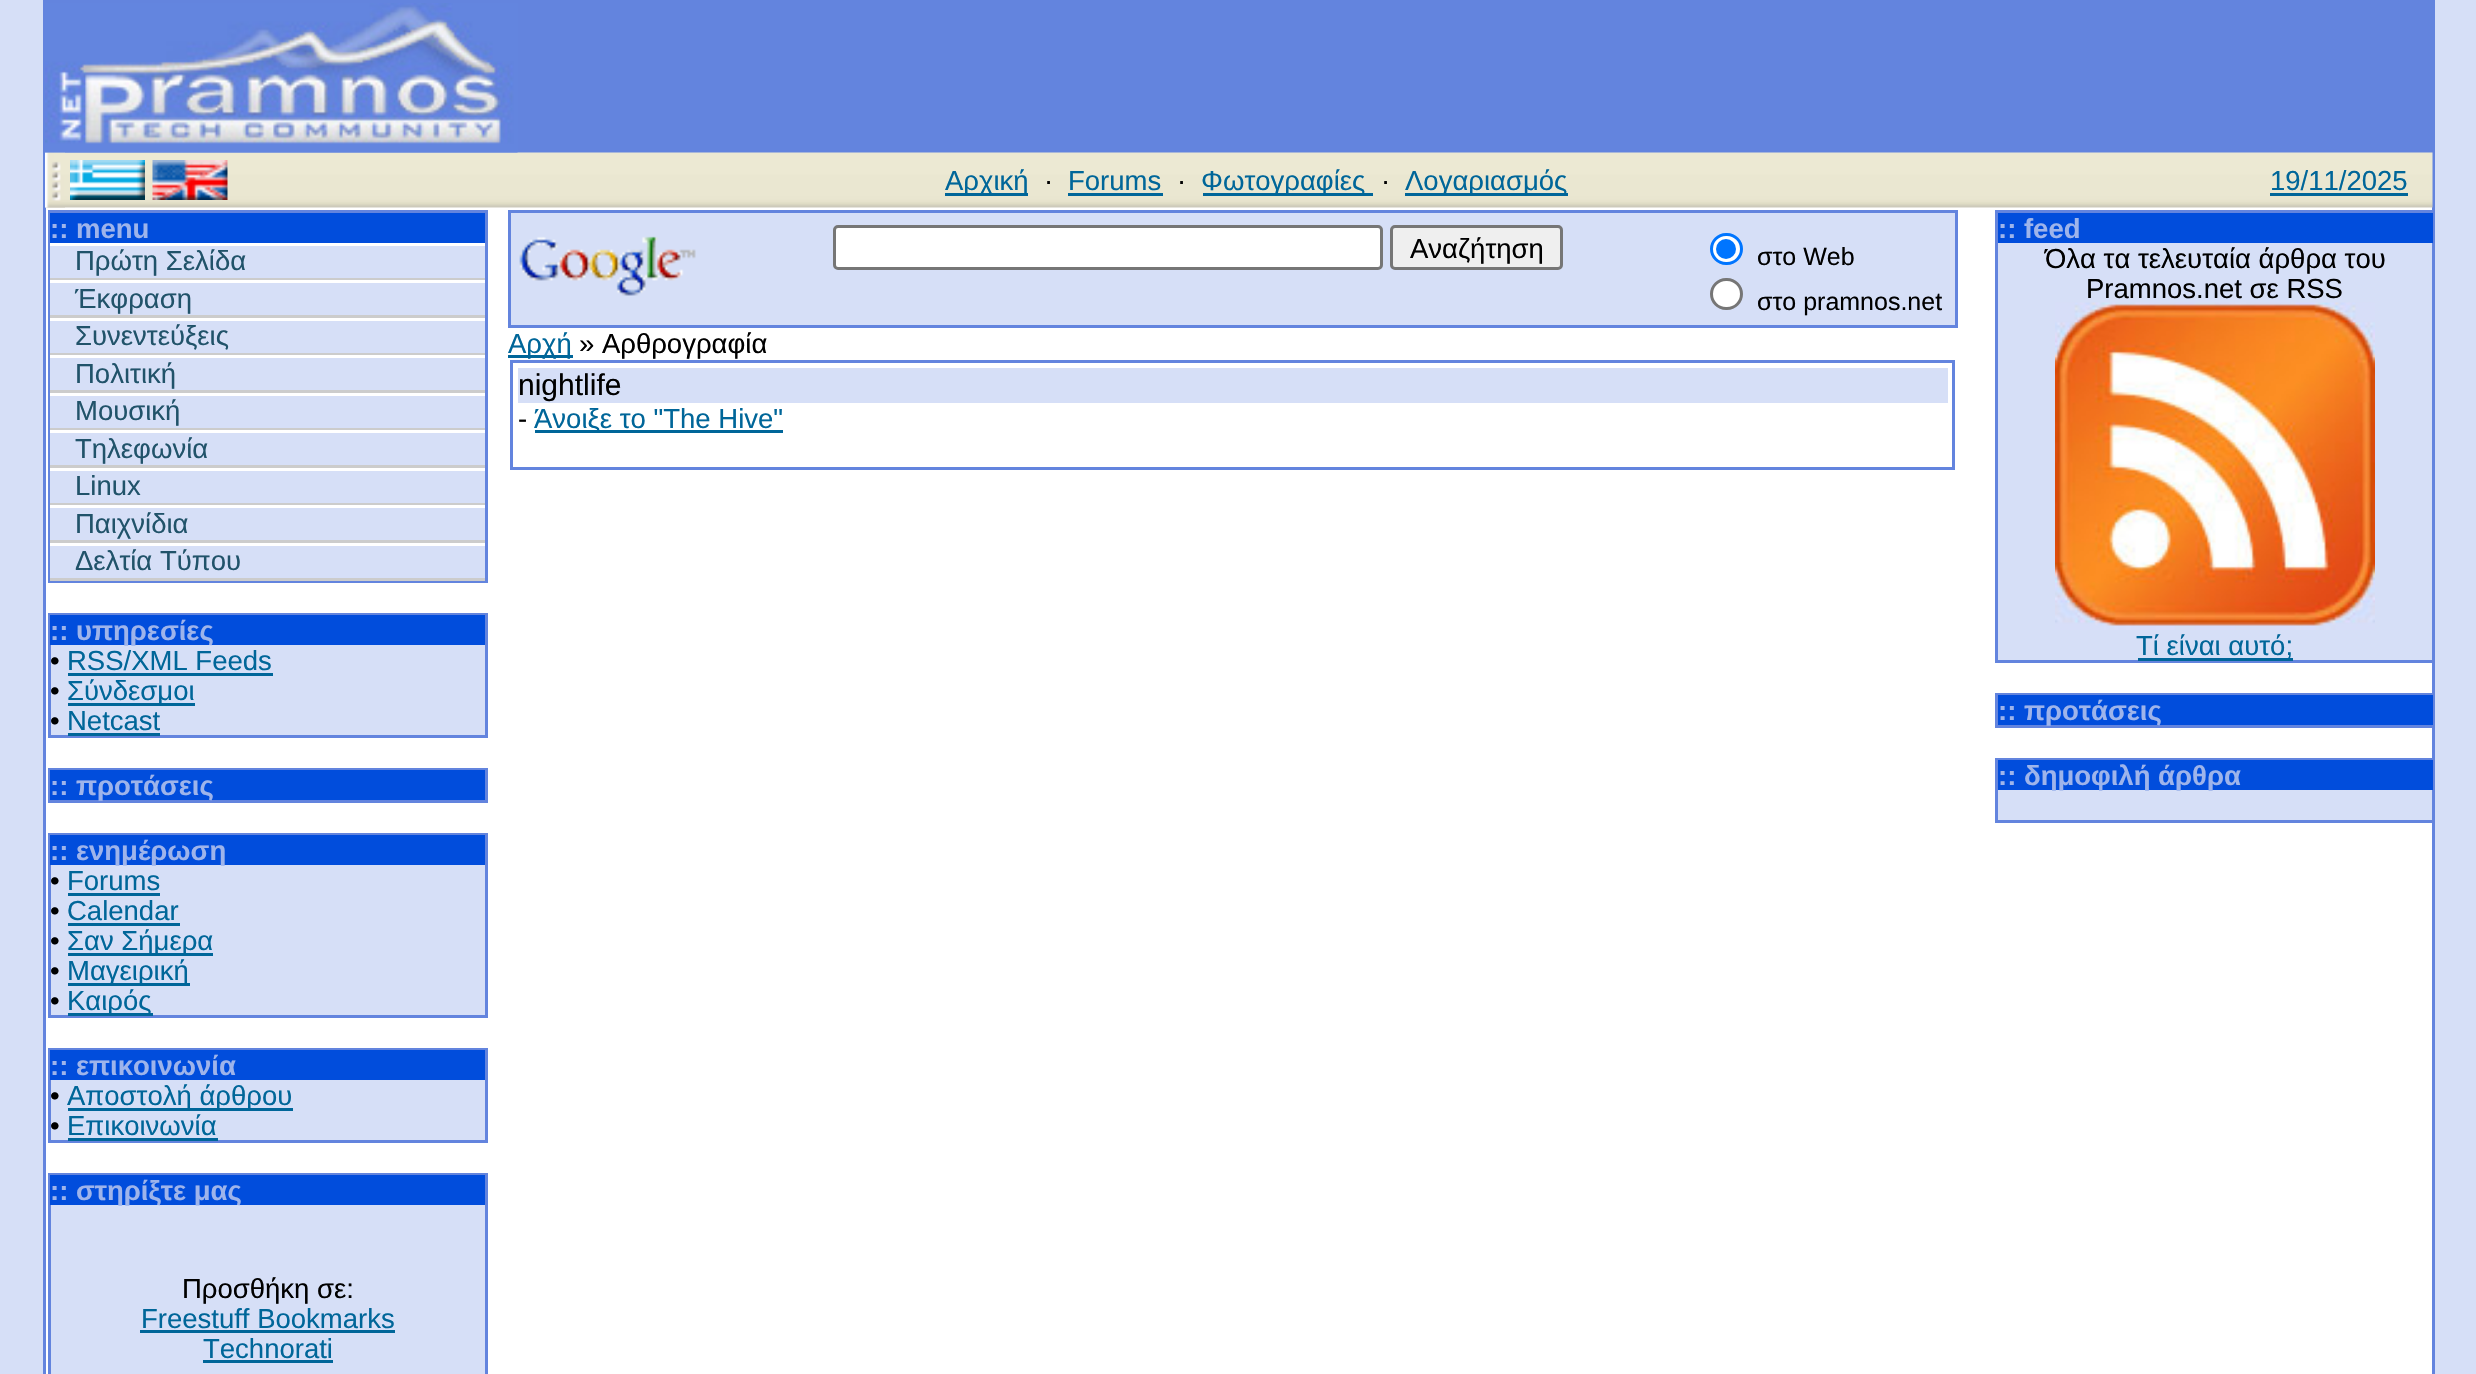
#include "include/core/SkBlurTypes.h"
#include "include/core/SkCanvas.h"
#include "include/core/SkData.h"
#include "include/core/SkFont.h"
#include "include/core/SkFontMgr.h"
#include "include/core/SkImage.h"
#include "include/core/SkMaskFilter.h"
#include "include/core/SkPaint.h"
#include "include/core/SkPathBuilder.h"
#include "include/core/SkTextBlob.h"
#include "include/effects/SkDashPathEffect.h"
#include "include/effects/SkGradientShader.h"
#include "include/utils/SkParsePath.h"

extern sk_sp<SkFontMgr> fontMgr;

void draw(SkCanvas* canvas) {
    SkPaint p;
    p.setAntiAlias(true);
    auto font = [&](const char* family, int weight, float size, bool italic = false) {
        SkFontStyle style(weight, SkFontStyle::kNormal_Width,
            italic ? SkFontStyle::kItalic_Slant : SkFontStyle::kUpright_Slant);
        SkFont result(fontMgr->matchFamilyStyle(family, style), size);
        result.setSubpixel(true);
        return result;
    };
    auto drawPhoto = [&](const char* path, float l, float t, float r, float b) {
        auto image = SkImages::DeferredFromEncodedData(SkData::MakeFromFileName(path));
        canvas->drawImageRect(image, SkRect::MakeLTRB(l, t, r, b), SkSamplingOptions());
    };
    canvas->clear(0xFFD6DFF7);
    p.setColor(0xFFFFFFFF);
    canvas->drawRect(SkRect::MakeLTRB(46, 207, 2432, 1374), p);
    p.setStyle(SkPaint::kStroke_Style);
    p.setStrokeWidth(3);
    p.setColor(0xFF6384DE);
    canvas->drawRect(SkRect::MakeLTRB(44.5f, 1.5f, 2433.5f, 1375.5f), p);
    p.setStyle(SkPaint::kFill_Style);
    canvas->drawRect(SkRect::MakeLTRB(46, 3, 2432, 153), p);
    drawPhoto("media/2.png", 45, 152, 2433, 208);
    drawPhoto("media/3.png", 45, 152, 65, 208);
    drawPhoto("media/1.png", 45, 3, 518, 153);
    drawPhoto("media/4.png", 70, 160, 145, 200);
    drawPhoto("media/5.png", 152, 160, 228, 200);
    p.setColor(0xFF006699);
    canvas->drawRect(SkRect::MakeLTRB(945, 193, 1028, 196), p);
    auto font1 = font("Liberation Sans", 400, 27.5f);
    canvas->drawString("Αρχική", 945, 190, font1, p);
    p.setColor(0xFF000000);
    canvas->drawString("·", 1044, 190, font1, p);
    p.setColor(0xFF006699);
    canvas->drawString("Forums", 1068, 190, font1, p);
    canvas->drawRect(SkRect::MakeLTRB(1068, 193, 1163, 196), p);
    p.setColor(0xFF000000);
    canvas->drawString("·", 1177, 190, font1, p);
    p.setColor(0xFF006699);
    canvas->drawRect(SkRect::MakeLTRB(1203, 193, 1373, 196), p);
    canvas->drawString("Φωτογραφίες", 1201, 190, font1, p);
    p.setColor(0xFF000000);
    canvas->drawString("·", 1381, 190, font1, p);
    p.setColor(0xFF006699);
    canvas->drawRect(SkRect::MakeLTRB(1405, 193, 1568, 196), p);
    canvas->drawString("Λογαριασμός", 1405, 190, font1, p);
    canvas->drawString("19/11/2025", 2270, 190, font1, p);
    canvas->drawRect(SkRect::MakeLTRB(2270, 193, 2408, 196), p);
    p.setStyle(SkPaint::kStroke_Style);
    p.setColor(0xFF6384DE);
    canvas->drawRect(SkRect::MakeLTRB(49.5f, 211.5f, 486.5f, 581.5f), p);
    p.setStyle(SkPaint::kFill_Style);
    p.setColor(0xFF014DDC);
    canvas->drawRect(SkRect::MakeLTRB(50, 213, 485, 243), p);
    auto font2 = font("Liberation Sans", 700, 27.5f);
    p.setColor(0xFF9EB4EB);
    canvas->drawString(":: menu", 50, 238, font2, p);
    {
        const struct { float l, t, r, b; SkColor color; } items[] = {
            {50, 246, 485, 578, 0xFFD6DFF7},
            {50, 243, 51, 246, 0xFFFFFFFF},
            {50, 278, 485, 280, 0xFFCCCCCC},
        };
        for (auto [l, t, r, b, color] : items) {
            p.setColor(color);
            canvas->drawRect(SkRect::MakeLTRB(l, t, r, b), p);
        }
    }
    p.setColor(0xFF21536A);
    canvas->drawString("Πρώτη Σελίδα", 75, 270, font1, p);
    p.setColor(0xFFFFFFFF);
    canvas->drawRect(SkRect::MakeLTRB(50, 280, 485, 283), p);
    p.setColor(0xFFCCCCCC);
    canvas->drawRect(SkRect::MakeLTRB(50, 315, 485, 318), p);
    p.setColor(0xFF21536A);
    canvas->drawString("Έκφραση", 75, 308, font1, p);
    p.setColor(0xFFFFFFFF);
    canvas->drawRect(SkRect::MakeLTRB(50, 318, 485, 321), p);
    p.setColor(0xFFCCCCCC);
    canvas->drawRect(SkRect::MakeLTRB(50, 353, 485, 355), p);
    p.setColor(0xFF21536A);
    canvas->drawString("Συνεντεύξεις", 75, 345, font1, p);
    p.setColor(0xFFFFFFFF);
    canvas->drawRect(SkRect::MakeLTRB(50, 355, 485, 358), p);
    p.setColor(0xFFCCCCCC);
    canvas->drawRect(SkRect::MakeLTRB(50, 390, 485, 393), p);
    p.setColor(0xFF21536A);
    canvas->drawString("Πολιτική", 75, 383, font1, p);
    p.setColor(0xFFFFFFFF);
    canvas->drawRect(SkRect::MakeLTRB(50, 393, 485, 396), p);
    p.setColor(0xFFCCCCCC);
    canvas->drawRect(SkRect::MakeLTRB(50, 428, 485, 430), p);
    p.setColor(0xFF21536A);
    canvas->drawString("Μουσική", 75, 420, font1, p);
    p.setColor(0xFFFFFFFF);
    canvas->drawRect(SkRect::MakeLTRB(50, 430, 485, 433), p);
    p.setColor(0xFFCCCCCC);
    canvas->drawRect(SkRect::MakeLTRB(50, 465, 485, 468), p);
    p.setColor(0xFF21536A);
    canvas->drawString("Τηλεφωνία", 75, 458, font1, p);
    p.setColor(0xFFFFFFFF);
    canvas->drawRect(SkRect::MakeLTRB(50, 468, 485, 471), p);
    p.setColor(0xFFCCCCCC);
    canvas->drawRect(SkRect::MakeLTRB(50, 503, 485, 505), p);
    p.setColor(0xFF21536A);
    canvas->drawString("Linux", 75, 495, font1, p);
    p.setColor(0xFFFFFFFF);
    canvas->drawRect(SkRect::MakeLTRB(50, 505, 485, 508), p);
    p.setColor(0xFFCCCCCC);
    canvas->drawRect(SkRect::MakeLTRB(50, 540, 485, 543), p);
    p.setColor(0xFF21536A);
    canvas->drawString("Παιχνίδια", 75, 533, font1, p);
    p.setColor(0xFFFFFFFF);
    canvas->drawRect(SkRect::MakeLTRB(50, 543, 485, 546), p);
    p.setColor(0xFFCCCCCC);
    canvas->drawRect(SkRect::MakeLTRB(50, 578, 485, 581), p);
    p.setColor(0xFF21536A);
    canvas->drawString("Δελτία Τύπου", 75, 570, font1, p);
    p.setColor(0xFFD6DFF7);
    canvas->drawRect(SkRect::MakeLTRB(51, 645, 485, 735), p);
    p.setStyle(SkPaint::kStroke_Style);
    p.setColor(0xFF6384DE);
    canvas->drawRect(SkRect::MakeLTRB(49.5f, 614.5f, 486.5f, 736.5f), p);
    p.setStyle(SkPaint::kFill_Style);
    p.setColor(0xFF014DDC);
    canvas->drawRect(SkRect::MakeLTRB(50, 615, 485, 645), p);
    p.setColor(0xFF9EB4EB);
    canvas->drawString(":: υπηρεσίες", 50, 640, font2, p);
    p.setColor(0xFF000000);
    canvas->drawString("•", 50, 670, font1, p);
    p.setColor(0xFF006699);
    canvas->drawString("RSS/XML Feeds", 67, 670, font1, p);
    canvas->drawRect(SkRect::MakeLTRB(68, 673, 273, 676), p);
    p.setColor(0xFF000000);
    canvas->drawString("•", 50, 700, font1, p);
    p.setColor(0xFF006699);
    canvas->drawRect(SkRect::MakeLTRB(68, 703, 195, 706), p);
    canvas->drawString("Σύνδεσμοι", 67, 700, font1, p);
    p.setColor(0xFF000000);
    canvas->drawString("•", 50, 730, font1, p);
    p.setColor(0xFF006699);
    canvas->drawString("Netcast", 67, 730, font1, p);
    canvas->drawRect(SkRect::MakeLTRB(68, 733, 160, 736), p);
    p.setStyle(SkPaint::kStroke_Style);
    p.setColor(0xFF6384DE);
    canvas->drawRect(SkRect::MakeLTRB(49.5f, 769.5f, 486.5f, 801.5f), p);
    p.setStyle(SkPaint::kFill_Style);
    p.setColor(0xFF014DDC);
    canvas->drawRect(SkRect::MakeLTRB(50, 770, 485, 800), p);
    p.setColor(0xFF9EB4EB);
    canvas->drawString(":: προτάσεις", 50, 795, font2, p);
    p.setColor(0xFFD6DFF7);
    canvas->drawRect(SkRect::MakeLTRB(51, 865, 485, 1015), p);
    p.setStyle(SkPaint::kStroke_Style);
    p.setColor(0xFF6384DE);
    canvas->drawRect(SkRect::MakeLTRB(49.5f, 834.5f, 486.5f, 1016.5f), p);
    p.setStyle(SkPaint::kFill_Style);
    p.setColor(0xFF014DDC);
    canvas->drawRect(SkRect::MakeLTRB(50, 835, 485, 865), p);
    p.setColor(0xFF9EB4EB);
    canvas->drawString(":: ενημέρωση", 50, 860, font2, p);
    p.setColor(0xFF000000);
    canvas->drawString("•", 50, 890, font1, p);
    p.setColor(0xFF006699);
    canvas->drawString("Forums", 67, 890, font1, p);
    canvas->drawRect(SkRect::MakeLTRB(68, 893, 160, 896), p);
    p.setColor(0xFF000000);
    canvas->drawString("•", 50, 920, font1, p);
    p.setColor(0xFF006699);
    canvas->drawString("Calendar", 67, 920, font1, p);
    canvas->drawRect(SkRect::MakeLTRB(68, 923, 180, 926), p);
    p.setColor(0xFF000000);
    canvas->drawString("•", 50, 950, font1, p);
    p.setColor(0xFF006699);
    canvas->drawRect(SkRect::MakeLTRB(68, 953, 213, 956), p);
    canvas->drawString("Σαν Σήμερα", 67, 950, font1, p);
    p.setColor(0xFF000000);
    canvas->drawString("•", 50, 980, font1, p);
    p.setColor(0xFF006699);
    canvas->drawRect(SkRect::MakeLTRB(68, 983, 190, 986), p);
    canvas->drawString("Μαγειρική", 67, 980, font1, p);
    p.setColor(0xFF000000);
    canvas->drawString("•", 50, 1010, font1, p);
    p.setColor(0xFF006699);
    canvas->drawRect(SkRect::MakeLTRB(68, 1013, 153, 1016), p);
    canvas->drawString("Καιρός", 67, 1010, font1, p);
    p.setColor(0xFFD6DFF7);
    canvas->drawRect(SkRect::MakeLTRB(51, 1080, 485, 1140), p);
    p.setStyle(SkPaint::kStroke_Style);
    p.setColor(0xFF6384DE);
    canvas->drawRect(SkRect::MakeLTRB(49.5f, 1049.5f, 486.5f, 1141.5f), p);
    p.setStyle(SkPaint::kFill_Style);
    p.setColor(0xFF014DDC);
    canvas->drawRect(SkRect::MakeLTRB(50, 1050, 485, 1080), p);
    p.setColor(0xFF9EB4EB);
    canvas->drawString(":: επικοινωνία", 50, 1075, font2, p);
    p.setColor(0xFF000000);
    canvas->drawString("•", 50, 1105, font1, p);
    p.setColor(0xFF006699);
    canvas->drawRect(SkRect::MakeLTRB(68, 1108, 293, 1111), p);
    canvas->drawString("Αποστολή άρθρου", 67, 1105, font1, p);
    p.setColor(0xFF000000);
    canvas->drawString("•", 50, 1135, font1, p);
    p.setColor(0xFF006699);
    canvas->drawString("Επικοινωνία", 67, 1135, font1, p);
    canvas->drawRect(SkRect::MakeLTRB(68, 1138, 218, 1141), p);
    p.setColor(0xFFD6DFF7);
    canvas->drawRect(SkRect::MakeLTRB(51, 1205, 485, 1374), p);
    p.setStyle(SkPaint::kStroke_Style);
    p.setColor(0xFF6384DE);
    canvas->drawRect(SkRect::MakeLTRB(49.5f, 1174.5f, 486.5f, 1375.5f), p);
    p.setStyle(SkPaint::kFill_Style);
    p.setColor(0xFF014DDC);
    canvas->drawRect(SkRect::MakeLTRB(50, 1175, 485, 1205), p);
    p.setColor(0xFF9EB4EB);
    canvas->drawString(":: στηρίξτε μας", 50, 1200, font2, p);
    p.setColor(0xFF000000);
    canvas->drawString("Προσθήκη σε:", 182, 1298, font1, p);
    p.setColor(0xFF006699);
    canvas->drawString("Freestuff Bookmarks", 141, 1328, font1, p);
    canvas->drawRect(SkRect::MakeLTRB(140, 1330, 395, 1333), p);
    canvas->drawString("Technorati", 203, 1358, font1, p);
    canvas->drawRect(SkRect::MakeLTRB(203, 1360, 333, 1363), p);
    p.setColor(0xFFD6DFF7);
    canvas->drawRect(SkRect::MakeLTRB(509.5f, 211.5f, 1956.5f, 326.5f), p);
    p.setStyle(SkPaint::kStroke_Style);
    p.setColor(0xFF6384DE);
    canvas->drawRect(SkRect::MakeLTRB(509.5f, 211.5f, 1956.5f, 326.5f), p);
    drawPhoto("media/6.png", 519, 236, 696, 296);
    p.setStyle(SkPaint::kFill_Style);
    p.setColor(0xFFFFFFFF);
    canvas->drawRoundRect(SkRect::MakeLTRB(834.5f, 226.5f, 1381.5f, 268.5f), 3.5f, 3.5f, p);
    p.setStyle(SkPaint::kStroke_Style);
    p.setColor(0xFF767676);
    canvas->drawRoundRect(SkRect::MakeLTRB(834.5f, 226.5f, 1381.5f, 268.5f), 3.5f, 3.5f, p);
    p.setStyle(SkPaint::kFill_Style);
    p.setColor(0xFFEFEFEF);
    canvas->drawRoundRect(SkRect::MakeLTRB(1391.5f, 226.5f, 1561.5f, 268.5f), 3.5f, 3.5f, p);
    p.setStyle(SkPaint::kStroke_Style);
    p.setColor(0xFF767676);
    canvas->drawRoundRect(SkRect::MakeLTRB(1391.5f, 226.5f, 1561.5f, 268.5f), 3.5f, 3.5f, p);
    p.setStyle(SkPaint::kFill_Style);
    p.setColor(0xFF000000);
    canvas->drawString("Αναζήτηση", 1410, 258, font1, p);
    p.setColor(0xFFFFFFFF);
    canvas->drawRoundRect(SkRect::MakeLTRB(1711.5f, 234.5f, 1741.5f, 263.5f), 14.5f, 14.5f, p);
    p.setStyle(SkPaint::kStroke_Style);
    p.setColor(0xFF0075FF);
    canvas->drawRoundRect(SkRect::MakeLTRB(1711.5f, 234.5f, 1741.5f, 263.5f), 14.5f, 14.5f, p);
    p.setStyle(SkPaint::kFill_Style);
    canvas->drawCircle(1726, 249, 10, p);
    auto font3 = font("Liberation Sans", 400, 25);
    p.setColor(0xFF000000);
    canvas->drawString("στο Web", 1757, 265, font3, p);
    p.setColor(0xFFFFFFFF);
    canvas->drawRoundRect(SkRect::MakeLTRB(1711.5f, 279.5f, 1741.5f, 308.5f), 14.5f, 14.5f, p);
    p.setStyle(SkPaint::kStroke_Style);
    p.setColor(0xFF767676);
    canvas->drawRoundRect(SkRect::MakeLTRB(1711.5f, 279.5f, 1741.5f, 308.5f), 14.5f, 14.5f, p);
    p.setStyle(SkPaint::kFill_Style);
    p.setColor(0xFF000000);
    canvas->drawString("στο pramnos.net", 1757, 310, font3, p);
    p.setColor(0xFF006699);
    canvas->drawRect(SkRect::MakeLTRB(508, 355, 573, 358), p);
    canvas->drawString("Αρχή", 508, 353, font1, p);
    p.setColor(0xFF000000);
    canvas->drawString("» Αρθρογραφία", 579, 353, font1, p);
    p.setStyle(SkPaint::kStroke_Style);
    p.setColor(0xFF6384DE);
    canvas->drawRect(SkRect::MakeLTRB(511.5f, 361.5f, 1953.5f, 468.5f), p);
    p.setStyle(SkPaint::kFill_Style);
    p.setColor(0xFFD6DFF7);
    canvas->drawRect(SkRect::MakeLTRB(518, 368, 1948, 403), p);
    auto font4 = font("Liberation Sans", 400, 30);
    p.setColor(0xFF000000);
    canvas->drawString("nightlife", 518, 395, font4, p);
    canvas->drawString("-", 518, 428, font1, p);
    p.setColor(0xFF006699);
    canvas->drawRect(SkRect::MakeLTRB(535, 430, 783, 433), p);
    canvas->drawString("Άνοιξε το \"The Hive\"", 534, 428, font1, p);
    p.setColor(0xFFD6DFF7);
    canvas->drawRect(SkRect::MakeLTRB(1998, 243, 2432, 660), p);
    p.setStyle(SkPaint::kStroke_Style);
    p.setColor(0xFF6384DE);
    canvas->drawRect(SkRect::MakeLTRB(1996.5f, 211.5f, 2433.5f, 661.5f), p);
    p.setStyle(SkPaint::kFill_Style);
    p.setColor(0xFF014DDC);
    canvas->drawRect(SkRect::MakeLTRB(1998, 213, 2433, 243), p);
    p.setColor(0xFF9EB4EB);
    canvas->drawString(":: feed", 1998, 238, font2, p);
    p.setColor(0xFF000000);
    canvas->drawString("Όλα τα τελευταία άρθρα του", 2045, 268, font1, p);
    canvas->drawString("Pramnos.net σε RSS", 2086, 298, font1, p);
    drawPhoto("media/7.png", 2055, 302, 2375, 630);
    p.setColor(0xFF006699);
    canvas->drawRect(SkRect::MakeLTRB(2138, 658, 2293, 661), p);
    canvas->drawString("Τί είναι αυτό;", 2136, 655, font1, p);
    p.setStyle(SkPaint::kStroke_Style);
    p.setColor(0xFF6384DE);
    canvas->drawRect(SkRect::MakeLTRB(1996.5f, 694.5f, 2433.5f, 726.5f), p);
    p.setStyle(SkPaint::kFill_Style);
    p.setColor(0xFF014DDC);
    canvas->drawRect(SkRect::MakeLTRB(1998, 695, 2433, 725), p);
    p.setColor(0xFF9EB4EB);
    canvas->drawString(":: προτάσεις", 1998, 720, font2, p);
    p.setColor(0xFFD6DFF7);
    canvas->drawRect(SkRect::MakeLTRB(1998, 790, 2432, 820), p);
    p.setStyle(SkPaint::kStroke_Style);
    p.setColor(0xFF6384DE);
    canvas->drawRect(SkRect::MakeLTRB(1996.5f, 759.5f, 2433.5f, 821.5f), p);
    p.setStyle(SkPaint::kFill_Style);
    p.setColor(0xFF014DDC);
    canvas->drawRect(SkRect::MakeLTRB(1998, 760, 2433, 790), p);
    p.setColor(0xFF9EB4EB);
    canvas->drawString(":: δημοφιλή άρθρα", 1998, 785, font2, p);
}
